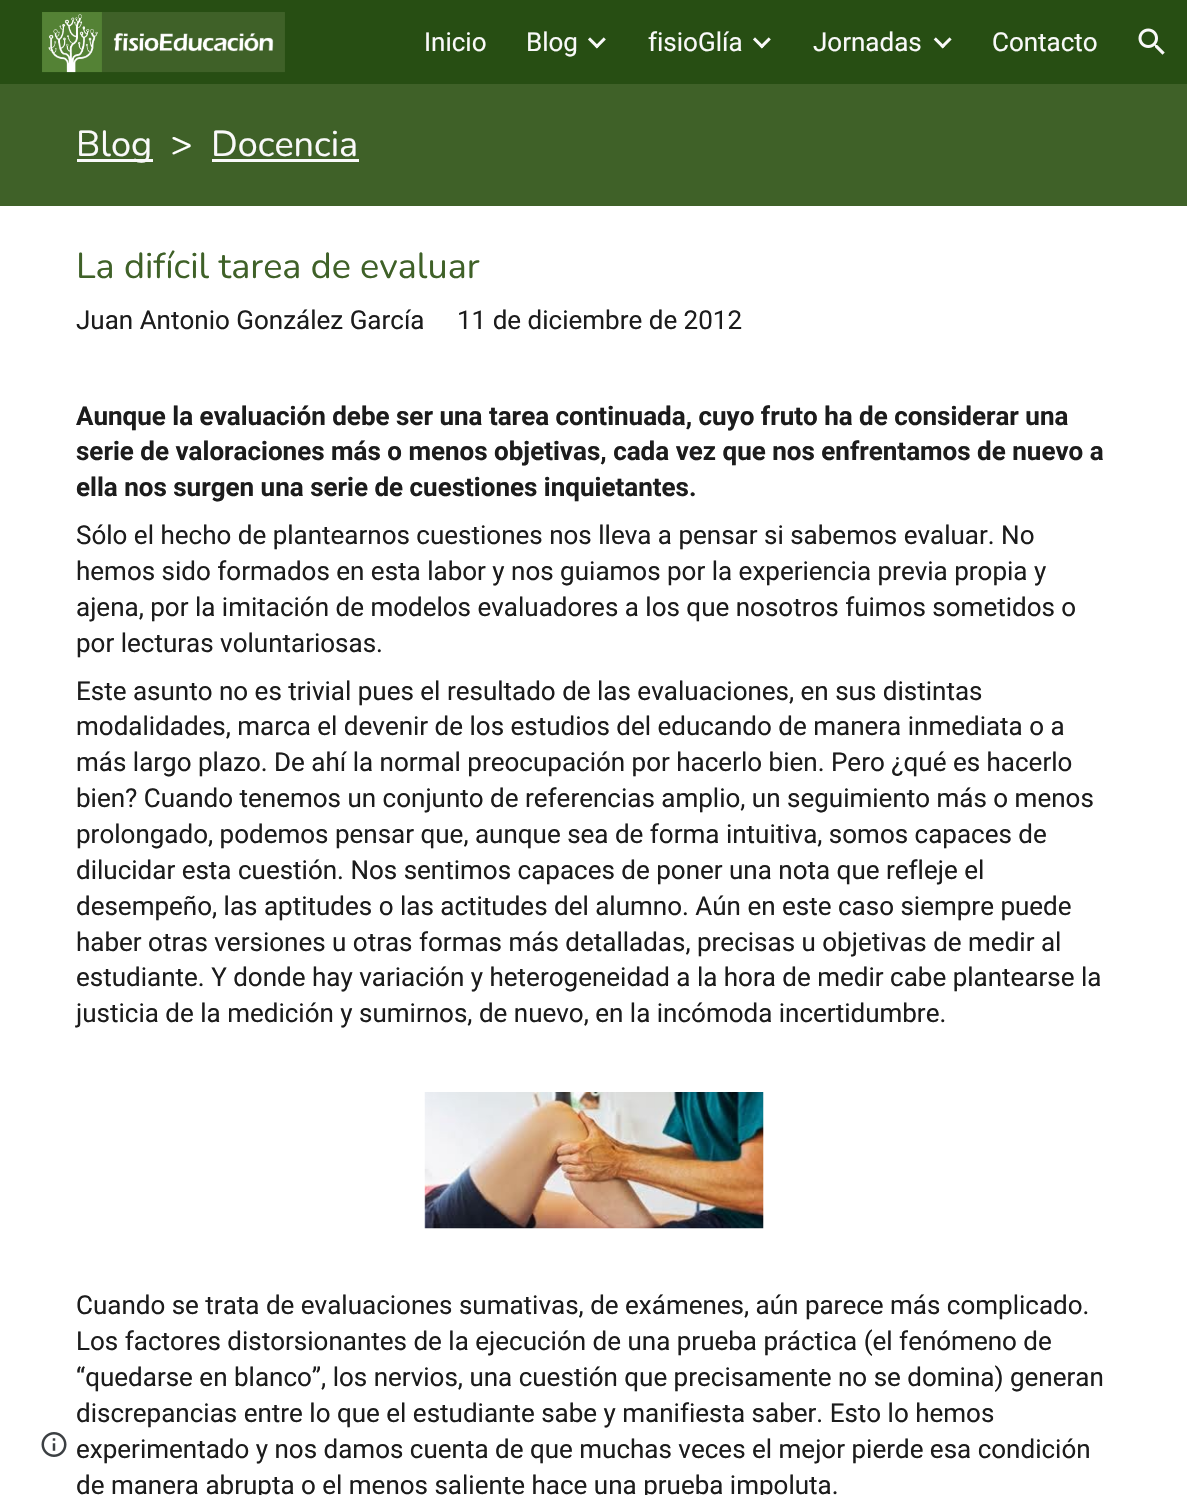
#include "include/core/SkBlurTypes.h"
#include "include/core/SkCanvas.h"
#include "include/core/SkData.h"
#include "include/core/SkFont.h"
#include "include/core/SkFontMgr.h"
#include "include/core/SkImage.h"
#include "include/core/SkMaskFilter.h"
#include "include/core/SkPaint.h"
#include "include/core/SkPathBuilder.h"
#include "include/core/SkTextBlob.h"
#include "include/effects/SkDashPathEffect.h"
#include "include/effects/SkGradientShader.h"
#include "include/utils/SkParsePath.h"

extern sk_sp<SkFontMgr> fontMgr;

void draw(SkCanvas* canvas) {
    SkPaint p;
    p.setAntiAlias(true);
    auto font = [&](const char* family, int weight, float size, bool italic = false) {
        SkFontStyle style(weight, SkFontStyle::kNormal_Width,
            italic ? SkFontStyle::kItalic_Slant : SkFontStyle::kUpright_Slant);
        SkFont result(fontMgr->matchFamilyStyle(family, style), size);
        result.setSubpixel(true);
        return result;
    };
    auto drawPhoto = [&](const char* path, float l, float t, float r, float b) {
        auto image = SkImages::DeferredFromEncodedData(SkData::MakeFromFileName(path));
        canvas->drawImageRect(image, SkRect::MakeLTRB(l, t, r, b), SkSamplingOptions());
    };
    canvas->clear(0xFFFFFFFF);
    p.setColor(0xFF274E13);
    canvas->drawRect(SkRect::MakeLTRB(0, 0, 1187, 84), p);
    drawPhoto("media/1.png", 42, 12, 285, 73);
    auto font1 = font("Roboto", 400, 26);
    p.setColor(0xFFF9F9F9);
    canvas->drawString("Inicio", 424, 51, font1, p);
    canvas->drawString("Blog", 526, 51, font1, p);
    drawPhoto("media/2.png", 588, 37, 606, 49);
    canvas->drawString("fisioGlía", 648, 51, font1, p);
    drawPhoto("media/3.png", 753, 37, 771, 49);
    canvas->drawString("Jornadas", 813, 51, font1, p);
    drawPhoto("media/4.png", 933, 37, 952, 49);
    canvas->drawString("Contacto", 992, 51, font1, p);
    drawPhoto("media/5.png", 1138, 28, 1165, 55);
    drawPhoto("media/6.png", 41, 1432, 67, 1457);
    p.setColor(0xFF3F6128);
    canvas->drawRect(SkRect::MakeLTRB(0, 84, 1187, 206), p);
    p.setColor(0xFFF9F9F9);
    canvas->drawRect(SkRect::MakeLTRB(77, 159, 153, 162), p);
    auto font2 = font("Nunito", 400, 36);
    canvas->drawString("Blog", 76, 156, font2, p);
    p.setColor(0xFFFFFFFF);
    canvas->drawString(">", 171, 156, font2, p);
    p.setColor(0xFFF9F9F9);
    canvas->drawString("Docencia", 211, 156, font2, p);
    canvas->drawRect(SkRect::MakeLTRB(212, 159, 359, 162), p);
    p.setColor(0xFF3F6128);
    canvas->drawString("La difícil tarea de evaluar", 76, 278, font2, p);
    p.setColor(0xFF1C1C1C);
    canvas->drawString("Juan Antonio González García", 76, 329, font1, p);
    canvas->drawString("11 de diciembre de 2012", 457, 329, font1, p);
    auto font3 = font("Roboto", 700, 26);
    {
        const struct { const char* s; float x, y; } items[] = {
            {"Aunque la evaluación debe ser una tarea continuada, cuyo fruto ha de considerar una", 76, 425},
            {"serie de valoraciones más o menos objetivas, cada vez que nos enfrentamos de nuevo a", 76, 460},
            {"ella nos surgen una serie de cuestiones inquietantes.", 76, 496},
        };
        for (auto [s, x, y] : items) {
            canvas->drawString(s, x, y, font3, p);
        }
    }
    {
        const struct { const char* s; float x, y; } items[] = {
            {"Sólo el hecho de plantearnos cuestiones nos lleva a pensar si sabemos evaluar. No", 76, 544},
            {"hemos sido formados en esta labor y nos guiamos por la experiencia previa propia y", 76, 580},
            {"ajena, por la imitación de modelos evaluadores a los que nosotros fuimos sometidos o", 76, 616},
            {"por lecturas voluntariosas.", 76, 652},
            {"Este asunto no es trivial pues el resultado de las evaluaciones, en sus distintas", 76, 700},
            {"modalidades, marca el devenir de los estudios del educando de manera inmediata o a", 76, 735},
            {"más largo plazo. De ahí la normal preocupación por hacerlo bien. Pero ¿qué es hacerlo", 76, 771},
            {"bien? Cuando tenemos un conjunto de referencias amplio, un seguimiento más o menos", 76, 807},
            {"prolongado, podemos pensar que, aunque sea de forma intuitiva, somos capaces de", 76, 843},
            {"dilucidar esta cuestión. Nos sentimos capaces de poner una nota que refleje el", 76, 879},
            {"desempeño, las aptitudes o las actitudes del alumno. Aún en este caso siempre puede", 76, 915},
            {"haber otras versiones u otras formas más detalladas, precisas u objetivas de medir al", 76, 951},
            {"estudiante. Y donde hay variación y heterogeneidad a la hora de medir cabe plantearse la", 76, 986},
            {"justicia de la medición y sumirnos, de nuevo, en la incómoda incertidumbre.", 76, 1022},
        };
        for (auto [s, x, y] : items) {
            canvas->drawString(s, x, y, font1, p);
        }
    }
    drawPhoto("media/7.png", 424, 1092, 764, 1229);
    {
        const struct { const char* s; float x, y; } items[] = {
            {"Cuando se trata de evaluaciones sumativas, de exámenes, aún parece más complicado.", 76, 1314},
            {"Los factores distorsionantes de la ejecución de una prueba práctica (el fenómeno de", 76, 1350},
            {"“quedarse en blanco”, los nervios, una cuestión que precisamente no se domina) generan", 76, 1386},
            {"discrepancias entre lo que el estudiante sabe y manifiesta saber. Esto lo hemos", 76, 1422},
            {"experimentado y nos damos cuenta de que muchas veces el mejor pierde esa condición", 76, 1458},
            {"de manera abrupta o el menos saliente hace una prueba impoluta.", 76, 1494},
        };
        for (auto [s, x, y] : items) {
            canvas->drawString(s, x, y, font1, p);
        }
    }
}
